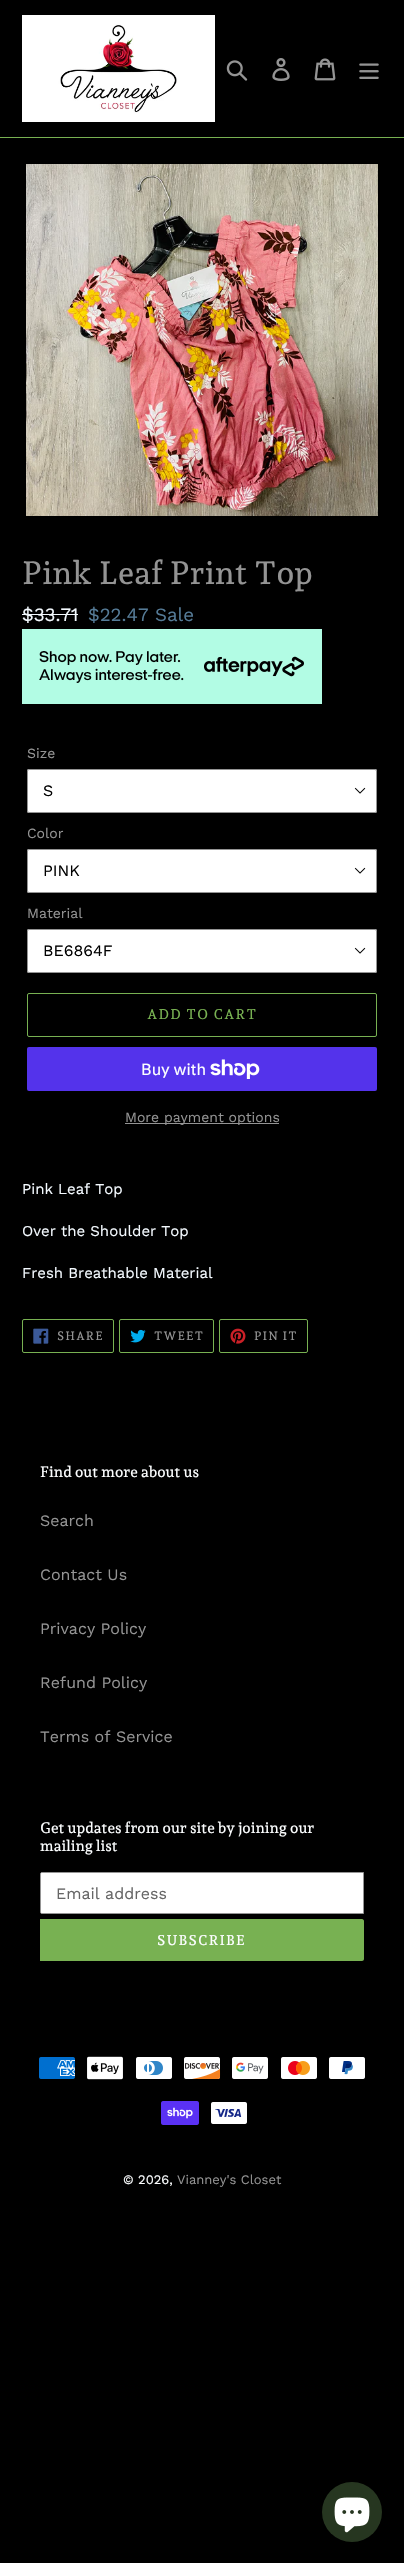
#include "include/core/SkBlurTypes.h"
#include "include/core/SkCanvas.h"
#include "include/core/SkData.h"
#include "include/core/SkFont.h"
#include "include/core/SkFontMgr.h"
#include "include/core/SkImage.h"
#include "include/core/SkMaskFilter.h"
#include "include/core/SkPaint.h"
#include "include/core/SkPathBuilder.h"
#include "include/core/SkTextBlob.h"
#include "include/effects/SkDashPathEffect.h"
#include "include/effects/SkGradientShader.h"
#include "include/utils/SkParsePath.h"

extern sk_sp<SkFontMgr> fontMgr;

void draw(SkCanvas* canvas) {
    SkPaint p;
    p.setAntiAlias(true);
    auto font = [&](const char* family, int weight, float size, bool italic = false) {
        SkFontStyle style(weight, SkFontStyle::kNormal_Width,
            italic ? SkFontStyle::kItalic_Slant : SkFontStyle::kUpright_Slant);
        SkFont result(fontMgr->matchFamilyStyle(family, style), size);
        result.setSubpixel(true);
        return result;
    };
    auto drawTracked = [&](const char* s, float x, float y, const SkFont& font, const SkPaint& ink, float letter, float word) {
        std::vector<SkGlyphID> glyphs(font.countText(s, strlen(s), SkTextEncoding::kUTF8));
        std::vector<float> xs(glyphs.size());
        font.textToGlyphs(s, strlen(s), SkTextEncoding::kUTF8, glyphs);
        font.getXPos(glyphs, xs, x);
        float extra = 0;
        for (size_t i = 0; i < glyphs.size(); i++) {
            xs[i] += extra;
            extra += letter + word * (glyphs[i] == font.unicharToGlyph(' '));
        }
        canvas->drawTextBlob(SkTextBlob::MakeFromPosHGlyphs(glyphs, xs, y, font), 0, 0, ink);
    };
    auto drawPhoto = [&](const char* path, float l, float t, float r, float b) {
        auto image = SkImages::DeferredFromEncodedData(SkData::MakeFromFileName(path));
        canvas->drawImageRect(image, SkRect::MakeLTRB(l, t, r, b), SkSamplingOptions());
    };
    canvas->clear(0xFF000000);
    p.setColor(0xFF78B152);
    canvas->drawRect(SkRect::MakeLTRB(0, 137, 404, 138), p);
    drawPhoto("media/1.png", 22, 15, 215, 122);
    drawPhoto("media/2.png", 226, 60, 248, 81);
    drawPhoto("media/3.png", 272, 58, 290, 81);
    drawPhoto("media/4.png", 314, 58, 336, 81);
    drawPhoto("media/5.png", 359, 63, 379, 79);
    drawPhoto("media/6.png", 26, 164, 378, 516);
    auto font1 = font("Andada Pro", 500, 32);
    p.setColor(0xFF949494);
    canvas->drawString("Pink Leaf Print Top", 22, 584, font1, p);
    auto font2 = font("Work Sans", 400, 18.75f);
    p.setColor(0xFFF4FAFF);
    canvas->drawString("$33.71", 22, 621, font2, p);
    canvas->drawRect(SkRect::MakeLTRB(22, 614, 78, 615), p);
    p.setColor(0xFF557B97);
    canvas->drawString("$22.47 Sale", 88, 621, font2, p);
    drawPhoto("media/7.png", 22, 629, 322, 704);
    auto font3 = font("Work Sans", 400, 14);
    p.setColor(0xFF949494);
    canvas->drawString("Size", 27, 758, font3, p);
    p.setColor(0xFFFFFFFF);
    canvas->drawRoundRect(SkRect::MakeLTRB(27, 769, 377, 813), 2, 2, p);
    drawPhoto("media/8.png", 354, 787, 366, 794);
    p.setStyle(SkPaint::kStroke_Style);
    p.setStrokeWidth(1);
    p.setColor(0xFF949494);
    canvas->drawRoundRect(SkRect::MakeLTRB(27.5f, 769.5f, 376.5f, 812.5f), 1.5f, 1.5f, p);
    auto font4 = font("Work Sans", 400, 16);
    p.setStyle(SkPaint::kFill_Style);
    p.setColor(0xFF000000);
    canvas->drawString("S", 43, 796, font4, p);
    p.setColor(0xFF949494);
    canvas->drawString("Color", 27, 838, font3, p);
    p.setColor(0xFFFFFFFF);
    canvas->drawRoundRect(SkRect::MakeLTRB(27, 849, 377, 893), 2, 2, p);
    drawPhoto("media/8.png", 354, 867, 366, 874);
    p.setStyle(SkPaint::kStroke_Style);
    p.setColor(0xFF949494);
    canvas->drawRoundRect(SkRect::MakeLTRB(27.5f, 849.5f, 376.5f, 892.5f), 1.5f, 1.5f, p);
    p.setStyle(SkPaint::kFill_Style);
    p.setColor(0xFF000000);
    canvas->drawString("PINK", 43, 876, font4, p);
    p.setColor(0xFF949494);
    canvas->drawString("Material", 27, 918, font3, p);
    p.setColor(0xFFFFFFFF);
    canvas->drawRoundRect(SkRect::MakeLTRB(27, 929, 377, 973), 2, 2, p);
    drawPhoto("media/8.png", 354, 947, 366, 954);
    p.setStyle(SkPaint::kStroke_Style);
    p.setColor(0xFF949494);
    canvas->drawRoundRect(SkRect::MakeLTRB(27.5f, 929.5f, 376.5f, 972.5f), 1.5f, 1.5f, p);
    p.setStyle(SkPaint::kFill_Style);
    p.setColor(0xFF000000);
    canvas->drawString("BE6864F", 43, 956, font4, p);
    p.setStyle(SkPaint::kStroke_Style);
    p.setColor(0xFF78B152);
    canvas->drawRoundRect(SkRect::MakeLTRB(27.5f, 993.5f, 376.5f, 1036.5f), 1.5f, 1.5f, p);
    auto font5 = font("Andada Pro", 500, 14);
    p.setStyle(SkPaint::kFill_Style);
    drawTracked("ADD TO CART", 147, 1019, font5, p, 1.1f, 0);
    p.setColor(0xFF5433EB);
    canvas->drawRoundRect(SkRect::MakeLTRB(27, 1047, 377, 1091), 2, 2, p);
    auto font6 = font("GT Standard", 400, 16);
    p.setColor(0xFFFCFEFF);
    canvas->drawString("Buy with", 141, 1075, font6, p);
    drawPhoto("media/9.png", 210, 1059, 260, 1079);
    p.setColor(0xFF949494);
    canvas->drawRect(SkRect::MakeLTRB(125, 1123, 279, 1124), p);
    canvas->drawString("More payment options", 125, 1122, font3, p);
    auto font7 = font("Work Sans", 400, 15);
    p.setColor(0xFFF4FAFF);
    {
        const struct { const char* s; float x, y; } items[] = {
            {"Pink Leaf Top", 22, 1194},
            {"Over the Shoulder Top", 22, 1236},
            {"Fresh Breathable Material", 22, 1278},
        };
        for (auto [s, x, y] : items) {
            canvas->drawString(s, x, y, font7, p);
        }
    }
    p.setStyle(SkPaint::kStroke_Style);
    p.setColor(0xFF78B152);
    canvas->drawRoundRect(SkRect::MakeLTRB(22.5f, 1319.5f, 113.5f, 1352.5f), 1.5f, 1.5f, p);
    drawPhoto("media/10.png", 33, 1328, 49, 1344);
    auto font8 = font("Andada Pro", 500, 12);
    p.setStyle(SkPaint::kFill_Style);
    p.setColor(0xFF949494);
    drawTracked("SHARE", 57, 1340, font8, p, 1, 0);
    p.setStyle(SkPaint::kStroke_Style);
    p.setColor(0xFF78B152);
    canvas->drawRoundRect(SkRect::MakeLTRB(119.5f, 1319.5f, 213.5f, 1352.5f), 1.5f, 1.5f, p);
    drawPhoto("media/11.png", 130, 1329, 146, 1343);
    p.setStyle(SkPaint::kFill_Style);
    p.setColor(0xFF949494);
    drawTracked("TWEET", 154, 1340, font8, p, 1, 0);
    p.setStyle(SkPaint::kStroke_Style);
    p.setColor(0xFF78B152);
    canvas->drawRoundRect(SkRect::MakeLTRB(219.5f, 1319.5f, 307.5f, 1352.5f), 1.5f, 1.5f, p);
    drawPhoto("media/12.png", 230, 1328, 246, 1344);
    p.setStyle(SkPaint::kFill_Style);
    p.setColor(0xFF949494);
    drawTracked("PIN IT", 254, 1340, font8, p, 1, 0);
    auto font9 = font("Andada Pro", 500, 15);
    p.setColor(0xFFFCFEFF);
    canvas->drawString("Find out more about us", 40, 1477, font9, p);
    p.setColor(0xFF949494);
    {
        const struct { const char* s; float x, y; } items[] = {
            {"Search", 40, 1526},
            {"Contact Us", 40, 1580},
            {"Privacy Policy", 40, 1634},
            {"Refund Policy", 40, 1688},
            {"Terms of Service", 40, 1742},
        };
        for (auto [s, x, y] : items) {
            canvas->drawString(s, x, y, font4, p);
        }
    }
    p.setColor(0xFFFCFEFF);
    canvas->drawString("Get updates from our site by joining our", 40, 1833, font9, p);
    canvas->drawString("mailing list", 40, 1851, font9, p);
    p.setColor(0xFFFFFFFF);
    canvas->drawPath(SkPathBuilder().moveTo(42, 1872.5f).lineTo(363.5f, 1872.5f).lineTo(363.5f, 1913.5f).lineTo(42, 1913.5f).cubicTo(41, 1913.5f, 40.5f, 1913, 40.5f, 1912).lineTo(40.5f, 1874).cubicTo(40.5f, 1873, 41, 1872.5f, 42, 1872.5f).close().detach(), p);
    p.setStyle(SkPaint::kStroke_Style);
    p.setColor(0xFF949494);
    canvas->drawPath(SkPathBuilder().moveTo(42, 1872.5f).lineTo(363.5f, 1872.5f).lineTo(363.5f, 1913.5f).lineTo(42, 1913.5f).cubicTo(41, 1913.5f, 40.5f, 1913, 40.5f, 1912).lineTo(40.5f, 1874).cubicTo(40.5f, 1873, 41, 1872.5f, 42, 1872.5f).close().detach(), p);
    p.setStyle(SkPaint::kFill_Style);
    p.setColor(0xFF666666);
    canvas->drawString("Email address", 56, 1899, font4, p);
    p.setColor(0xFF78B152);
    canvas->drawPath(SkPathBuilder().moveTo(40, 1919).lineTo(362, 1919).cubicTo(363, 1919, 364, 1920, 364, 1921).lineTo(364, 1959).cubicTo(364, 1960, 363, 1961, 362, 1961).lineTo(40, 1961).close().detach(), p);
    p.setColor(0xFFFCFEFF);
    drawTracked("SUBSCRIBE", 157, 1945, font5, p, 1.1f, 0);
    drawPhoto("media/13.png", 39, 2057, 75, 2079);
    drawPhoto("media/14.png", 87, 2056, 123, 2080);
    drawPhoto("media/15.png", 136, 2057, 172, 2079);
    drawPhoto("media/16.png", 184, 2057, 221, 2079);
    drawPhoto("media/17.png", 232, 2057, 268, 2079);
    drawPhoto("media/18.png", 281, 2057, 317, 2079);
    drawPhoto("media/19.png", 329, 2057, 365, 2079);
    drawPhoto("media/20.png", 161, 2101, 199, 2125);
    drawPhoto("media/21.png", 211, 2102, 247, 2124);
    auto font10 = font("Work Sans", 400, 13);
    canvas->drawString("© 2026,", 123, 2184, font10, p);
    p.setColor(0xFF949494);
    canvas->drawString("Vianney's Closet", 177, 2184, font10, p);
    p.setColor(0xFF263620);
    canvas->drawCircle(352, 2512, 30, p);
    drawPhoto("media/22.png", 334, 2497, 370, 2533);
}
